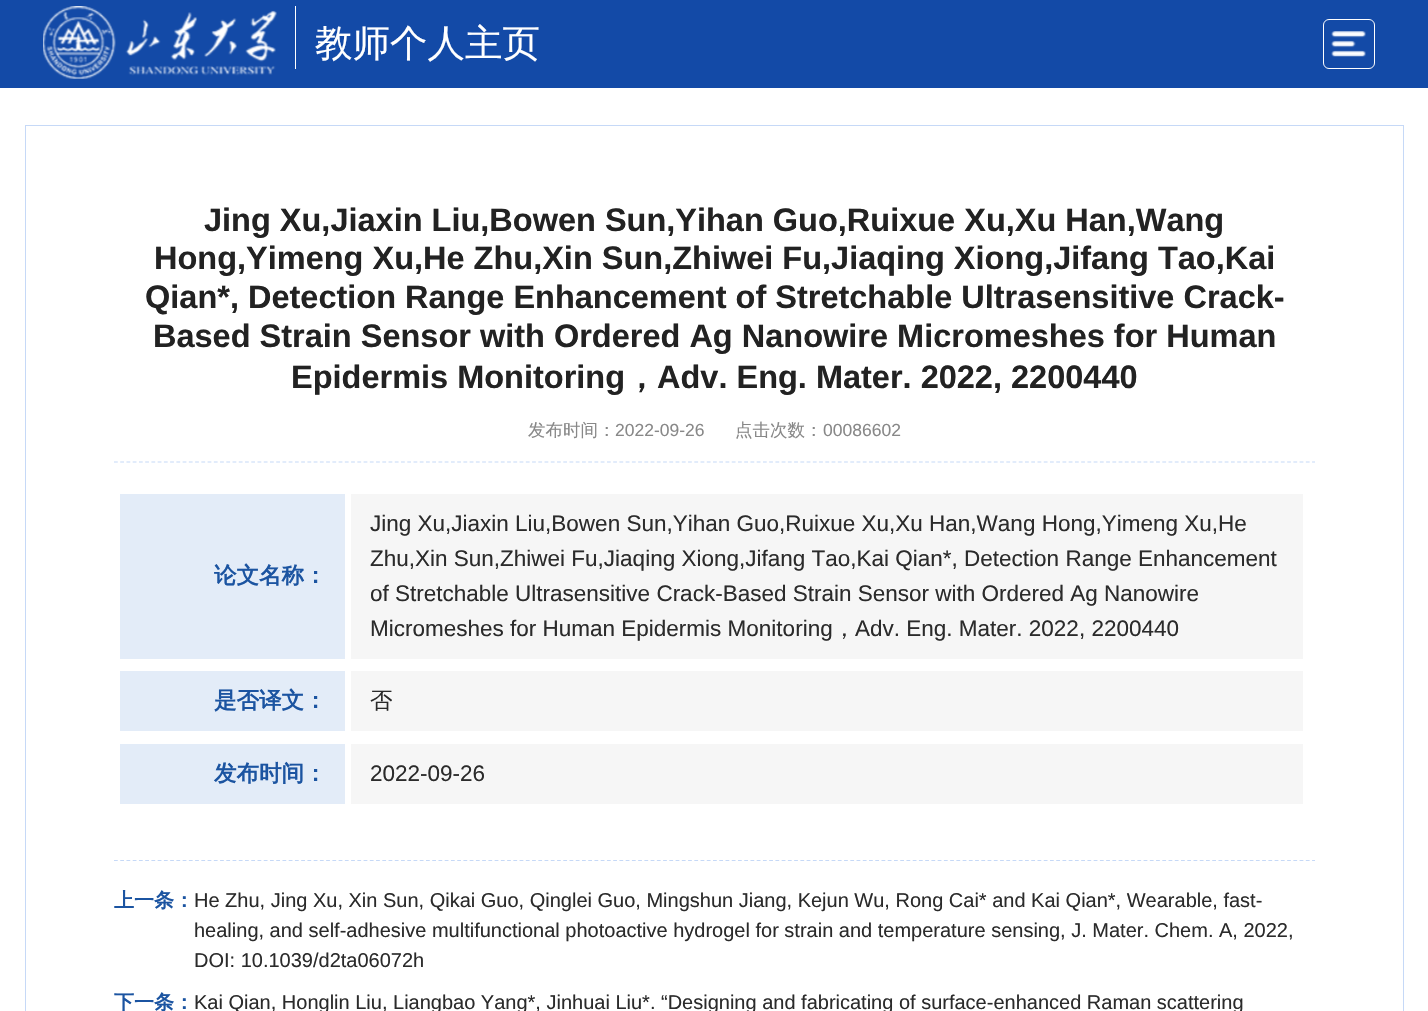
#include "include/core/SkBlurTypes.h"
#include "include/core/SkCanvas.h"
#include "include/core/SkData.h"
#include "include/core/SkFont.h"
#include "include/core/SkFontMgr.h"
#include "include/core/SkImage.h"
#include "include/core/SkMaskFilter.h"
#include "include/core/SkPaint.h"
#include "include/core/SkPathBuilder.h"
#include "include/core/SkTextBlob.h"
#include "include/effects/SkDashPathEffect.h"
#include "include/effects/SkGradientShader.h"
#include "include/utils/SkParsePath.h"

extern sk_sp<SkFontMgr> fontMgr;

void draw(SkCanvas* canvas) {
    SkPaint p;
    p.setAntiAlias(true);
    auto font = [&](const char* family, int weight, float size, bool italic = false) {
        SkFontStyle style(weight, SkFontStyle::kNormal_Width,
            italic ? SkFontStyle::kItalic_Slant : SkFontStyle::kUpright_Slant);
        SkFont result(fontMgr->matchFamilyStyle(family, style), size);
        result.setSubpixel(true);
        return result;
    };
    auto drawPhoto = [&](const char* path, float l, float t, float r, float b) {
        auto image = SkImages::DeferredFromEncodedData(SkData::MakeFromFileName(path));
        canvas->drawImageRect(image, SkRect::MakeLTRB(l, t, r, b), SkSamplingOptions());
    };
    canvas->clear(0xFFFFFFFF);
    p.setColor(0xFF134AA7);
    canvas->drawRect(SkRect::MakeLTRB(0, 0, 1428, 88), p);
    drawPhoto("media/1.png", 43, 6, 277, 79);
    p.setColor(0xFFFFFFFF);
    canvas->drawRect(SkRect::MakeLTRB(295, 6, 296, 69), p);
    auto font1 = font("WenQuanYi Zen Hei", 500, 37.5f);
    canvas->drawString("教师个人主页", 315, 56, font1, p);
    p.setStyle(SkPaint::kStroke_Style);
    p.setStrokeWidth(1);
    canvas->drawRoundRect(SkRect::MakeLTRB(1323.5f, 19.5f, 1374.5f, 68.5f), 5.5f, 5.5f, p);
    drawPhoto("media/2.png", 1331, 31, 1366, 57);
    p.setColor(0xFFC6D9F7);
    canvas->drawRect(SkRect::MakeLTRB(25.5f, 125.5f, 1403.5f, 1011.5f), p);
    auto font2 = font("Liberation Sans", 700, 32.5f);
    p.setStyle(SkPaint::kFill_Style);
    p.setColor(0xFF222222);
    {
        const struct { const char* s; float x, y; } items[] = {
            {"Jing Xu,Jiaxin Liu,Bowen Sun,Yihan Guo,Ruixue Xu,Xu Han,Wang", 204, 231},
            {"Hong,Yimeng Xu,He Zhu,Xin Sun,Zhiwei Fu,Jiaqing Xiong,Jifang Tao,Kai", 154, 269},
            {"Qian*, Detection Range Enhancement of Stretchable Ultrasensitive Crack-", 145, 308},
            {"Based Strain Sensor with Ordered Ag Nanowire Micromeshes for Human", 153, 347},
            {"Epidermis Monitoring", 291, 388},
        };
        for (auto [s, x, y] : items) {
            canvas->drawString(s, x, y, font2, p);
        }
    }
    auto font3 = font("WenQuanYi Zen Hei", 700, 32.5f);
    canvas->drawString("，", 625, 388, font3, p);
    canvas->drawString("Adv. Eng. Mater. 2022, 2200440", 657, 388, font2, p);
    p.setStyle(SkPaint::kStroke_Style);
    p.setStrokeWidth(1.2f);
    p.setColor(0xFFC6D9F7);
    p.setPathEffect(SkDashPathEffect::Make({{3.75f, 2.49f}}, 0));
    canvas->drawPath(SkPathBuilder().moveTo(114, 462).lineTo(1315, 462).detach(), p);
    p.setPathEffect(nullptr);
    auto font4 = font("WenQuanYi Zen Hei", 500, 17.5f);
    p.setStyle(SkPaint::kFill_Style);
    p.setColor(0xFF888888);
    canvas->drawString("发布时间：", 528, 436, font4, p);
    auto font5 = font("Liberation Sans", 400, 17.5f);
    canvas->drawString("2022-09-26", 615, 436, font5, p);
    canvas->drawString("点击次数：", 735, 436, font4, p);
    canvas->drawString("00086602", 823, 436, font5, p);
    p.setColor(0xFFE3ECF8);
    canvas->drawRect(SkRect::MakeLTRB(120, 494, 345, 659), p);
    auto font6 = font("WenQuanYi Zen Hei", 700, 22.5f);
    p.setColor(0xFF1B54A1);
    canvas->drawString("论文名称：", 214, 583, font6, p);
    p.setColor(0xFFF6F6F6);
    canvas->drawRect(SkRect::MakeLTRB(351, 494, 1303, 659), p);
    auto font7 = font("Liberation Sans", 400, 22.5f);
    p.setColor(0xFF2B2B2B);
    {
        const struct { const char* s; float x, y; } items[] = {
            {"Jing Xu,Jiaxin Liu,Bowen Sun,Yihan Guo,Ruixue Xu,Xu Han,Wang Hong,Yimeng Xu,He", 370, 531},
            {"Zhu,Xin Sun,Zhiwei Fu,Jiaqing Xiong,Jifang Tao,Kai Qian*, Detection Range Enhancement", 370, 566},
            {"of Stretchable Ultrasensitive Crack-Based Strain Sensor with Ordered Ag Nanowire", 370, 601},
            {"Micromeshes for Human Epidermis Monitoring", 370, 636},
        };
        for (auto [s, x, y] : items) {
            canvas->drawString(s, x, y, font7, p);
        }
    }
    auto font8 = font("WenQuanYi Zen Hei", 500, 22.5f);
    canvas->drawString("，", 833, 636, font8, p);
    canvas->drawString("Adv. Eng. Mater. 2022, 2200440", 855, 636, font7, p);
    p.setColor(0xFFE3ECF8);
    canvas->drawRect(SkRect::MakeLTRB(120, 671, 345, 731), p);
    p.setColor(0xFF1B54A1);
    canvas->drawString("是否译文：", 214, 708, font6, p);
    p.setColor(0xFFF6F6F6);
    canvas->drawRect(SkRect::MakeLTRB(351, 671, 1303, 731), p);
    p.setColor(0xFF2B2B2B);
    canvas->drawString("否", 370, 708, font8, p);
    p.setColor(0xFFE3ECF8);
    canvas->drawRect(SkRect::MakeLTRB(120, 744, 345, 804), p);
    p.setColor(0xFF1B54A1);
    canvas->drawString("发布时间：", 214, 781, font6, p);
    p.setColor(0xFFF6F6F6);
    canvas->drawRect(SkRect::MakeLTRB(351, 744, 1303, 804), p);
    p.setColor(0xFF2B2B2B);
    canvas->drawString("2022-09-26", 370, 781, font7, p);
    p.setStyle(SkPaint::kStroke_Style);
    p.setColor(0xFFC6D9F7);
    p.setPathEffect(SkDashPathEffect::Make({{3.75f, 2.49f}}, 0));
    canvas->drawPath(SkPathBuilder().moveTo(114, 860.5f).lineTo(1315, 860.5f).detach(), p);
    p.setPathEffect(nullptr);
    auto font9 = font("WenQuanYi Zen Hei", 700, 20);
    p.setStyle(SkPaint::kFill_Style);
    p.setColor(0xFF1B54A1);
    canvas->drawString("上一条：", 114, 907, font9, p);
    auto font10 = font("Liberation Sans", 400, 20);
    p.setColor(0xFF2B2B2B);
    {
        const struct { const char* s; float x, y; } items[] = {
            {"He Zhu, Jing Xu, Xin Sun, Qikai Guo, Qinglei Guo, Mingshun Jiang, Kejun Wu, Rong Cai* and Kai Qian*, Wearable, fast-", 194, 907},
            {"healing, and self-adhesive multifunctional photoactive hydrogel for strain and temperature sensing, J. Mater. Chem. A, 2022,", 194, 937},
            {"DOI: 10.1039/d2ta06072h", 194, 967},
        };
        for (auto [s, x, y] : items) {
            canvas->drawString(s, x, y, font10, p);
        }
    }
    p.setColor(0xFF1B54A1);
    canvas->drawString("下一条：", 114, 1009, font9, p);
    p.setColor(0xFF2B2B2B);
    canvas->drawString("Kai Qian, Honglin Liu, Liangbao Yang*, Jinhuai Liu*. “Designing and fabricating of surface-enhanced Raman scattering", 194, 1009, font10, p);
}
